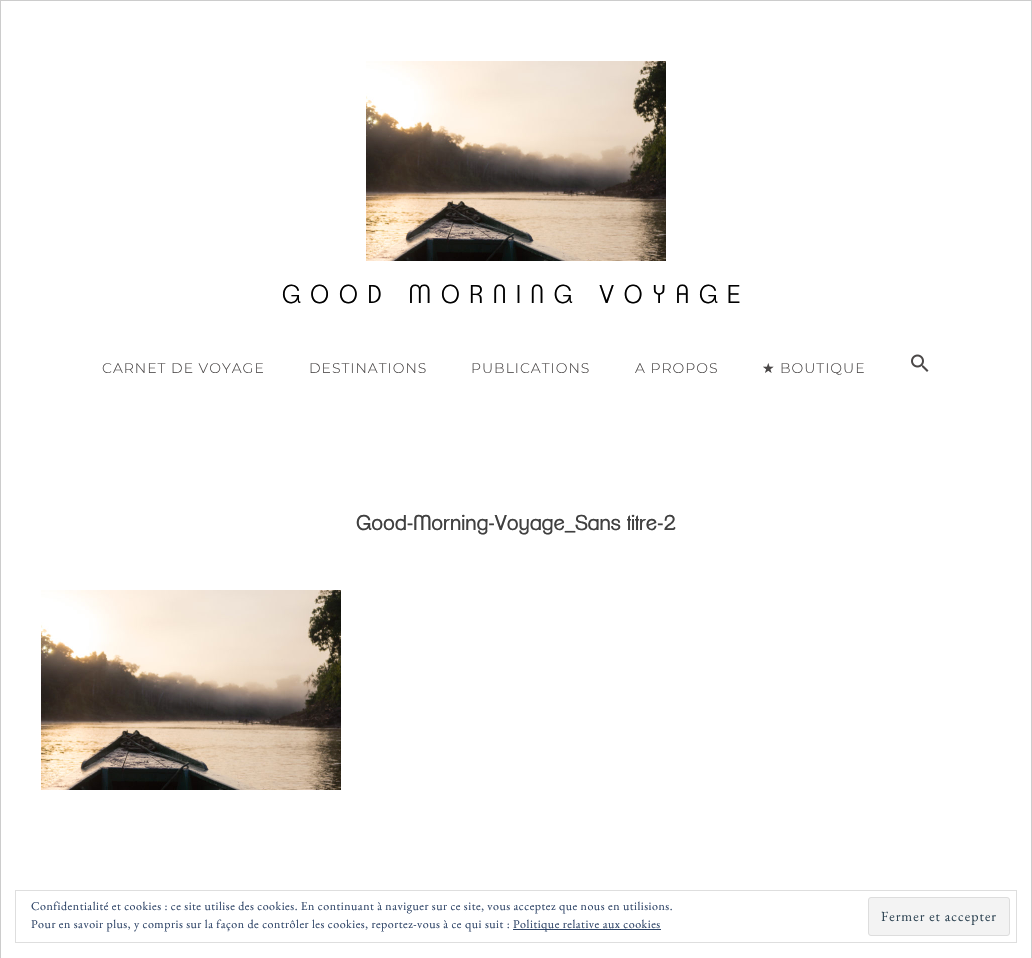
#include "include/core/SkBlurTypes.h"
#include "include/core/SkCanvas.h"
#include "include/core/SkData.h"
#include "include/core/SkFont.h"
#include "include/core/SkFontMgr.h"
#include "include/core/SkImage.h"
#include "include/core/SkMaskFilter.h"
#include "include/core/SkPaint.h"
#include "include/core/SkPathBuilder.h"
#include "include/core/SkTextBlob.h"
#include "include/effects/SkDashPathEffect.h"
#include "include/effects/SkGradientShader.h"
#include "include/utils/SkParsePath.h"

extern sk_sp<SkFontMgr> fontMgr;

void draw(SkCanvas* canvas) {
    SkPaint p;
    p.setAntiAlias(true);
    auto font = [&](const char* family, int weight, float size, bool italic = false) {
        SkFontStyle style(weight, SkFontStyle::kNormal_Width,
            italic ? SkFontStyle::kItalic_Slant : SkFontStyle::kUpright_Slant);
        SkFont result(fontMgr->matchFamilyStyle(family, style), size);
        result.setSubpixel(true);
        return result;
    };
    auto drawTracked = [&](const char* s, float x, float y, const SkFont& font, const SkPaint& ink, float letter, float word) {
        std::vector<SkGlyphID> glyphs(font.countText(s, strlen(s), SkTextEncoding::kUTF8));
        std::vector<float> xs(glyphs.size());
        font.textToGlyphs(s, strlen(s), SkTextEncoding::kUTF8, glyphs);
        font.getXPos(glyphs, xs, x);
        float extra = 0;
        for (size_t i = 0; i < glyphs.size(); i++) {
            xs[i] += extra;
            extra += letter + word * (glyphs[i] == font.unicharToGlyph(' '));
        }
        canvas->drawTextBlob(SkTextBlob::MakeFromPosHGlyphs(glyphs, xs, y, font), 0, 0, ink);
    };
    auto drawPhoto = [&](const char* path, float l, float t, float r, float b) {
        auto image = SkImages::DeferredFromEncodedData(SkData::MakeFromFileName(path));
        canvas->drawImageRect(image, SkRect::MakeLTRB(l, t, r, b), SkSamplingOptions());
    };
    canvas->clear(0xFFFFFFFF);
    p.setStyle(SkPaint::kStroke_Style);
    p.setStrokeWidth(1);
    p.setColor(0xFFCCCCCC);
    canvas->drawRect(SkRect::MakeLTRB(0.5f, 0.5f, 1031.5f, 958.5f), p);
    drawPhoto("media/1.png", 366, 61, 666, 261);
    auto font1 = font("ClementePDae", 300, 25);
    p.setStyle(SkPaint::kFill_Style);
    p.setColor(0xFF000000);
    drawTracked("GOOD MORNING VOYAGE", 282, 303, font1, p, 10, 0);
    auto font2 = font("Montserrat", 300, 14);
    p.setColor(0xFF4A4747);
    {
        const struct { const char* s; float x, y; } items[] = {
            {"CARNET DE VOYAGE", 102, 373},
            {"DESTINATIONS", 309, 373},
            {"PUBLICATIONS", 471, 373},
            {"A PROPOS", 635, 373},
        };
        for (auto [s, x, y] : items) {
            drawTracked(s, x, y, font2, p, 1, 0);
        }
    }
    auto font3 = font("DejaVu Sans", 400, 14);
    drawTracked("★", 762, 373, font3, p, 1, 0);
    drawTracked("BOUTIQUE", 780, 373, font2, p, 1, 0);
    drawPhoto("media/2.png", 911, 354, 929, 372);
    auto font4 = font("ClementePDae", 700, 20);
    p.setColor(0xFF404040);
    drawTracked("Good-Morning-Voyage_Sans titre-2", 356, 530, font4, p, 0.5f, 0);
    drawPhoto("media/1.png", 41, 590, 341, 790);
    p.setStyle(SkPaint::kStroke_Style);
    p.setColor(0xFFDEDEDE);
    canvas->drawRect(SkRect::MakeLTRB(15.5f, 890.5f, 1016.5f, 942.5f), p);
    auto font5 = font("EB Garamond", 400, 12);
    p.setStyle(SkPaint::kFill_Style);
    p.setColor(0xFF2E4467);
    drawTracked("Confidentialité et cookies : ce site utilise des cookies. En continuant à naviguer sur ce site, vous acceptez que nous en utilisions.", 31, 910, font5, p, 0.5f, 0);
    drawTracked("Pour en savoir plus, y compris sur la façon de contrôler les cookies, reportez-vous à ce qui suit :", 31, 928, font5, p, 0.5f, 0);
    canvas->drawRect(SkRect::MakeLTRB(513, 929, 661, 930), p);
    drawTracked("Politique relative aux cookies", 513, 928, font5, p, 0.5f, 0);
    p.setColor(0xFFF3F3F3);
    canvas->drawRoundRect(SkRect::MakeLTRB(868.5f, 897.5f, 1009.5f, 935.5f), 2.5f, 2.5f, p);
    p.setStyle(SkPaint::kStroke_Style);
    p.setColor(0xFFDDDDDD);
    canvas->drawRoundRect(SkRect::MakeLTRB(868.5f, 897.5f, 1009.5f, 935.5f), 2.5f, 2.5f, p);
    auto font6 = font("EB Garamond", 400, 14);
    p.setStyle(SkPaint::kFill_Style);
    p.setColor(0xFF2E4453);
    drawTracked("Fermer et accepter", 881, 921, font6, p, 1, 0);
}
